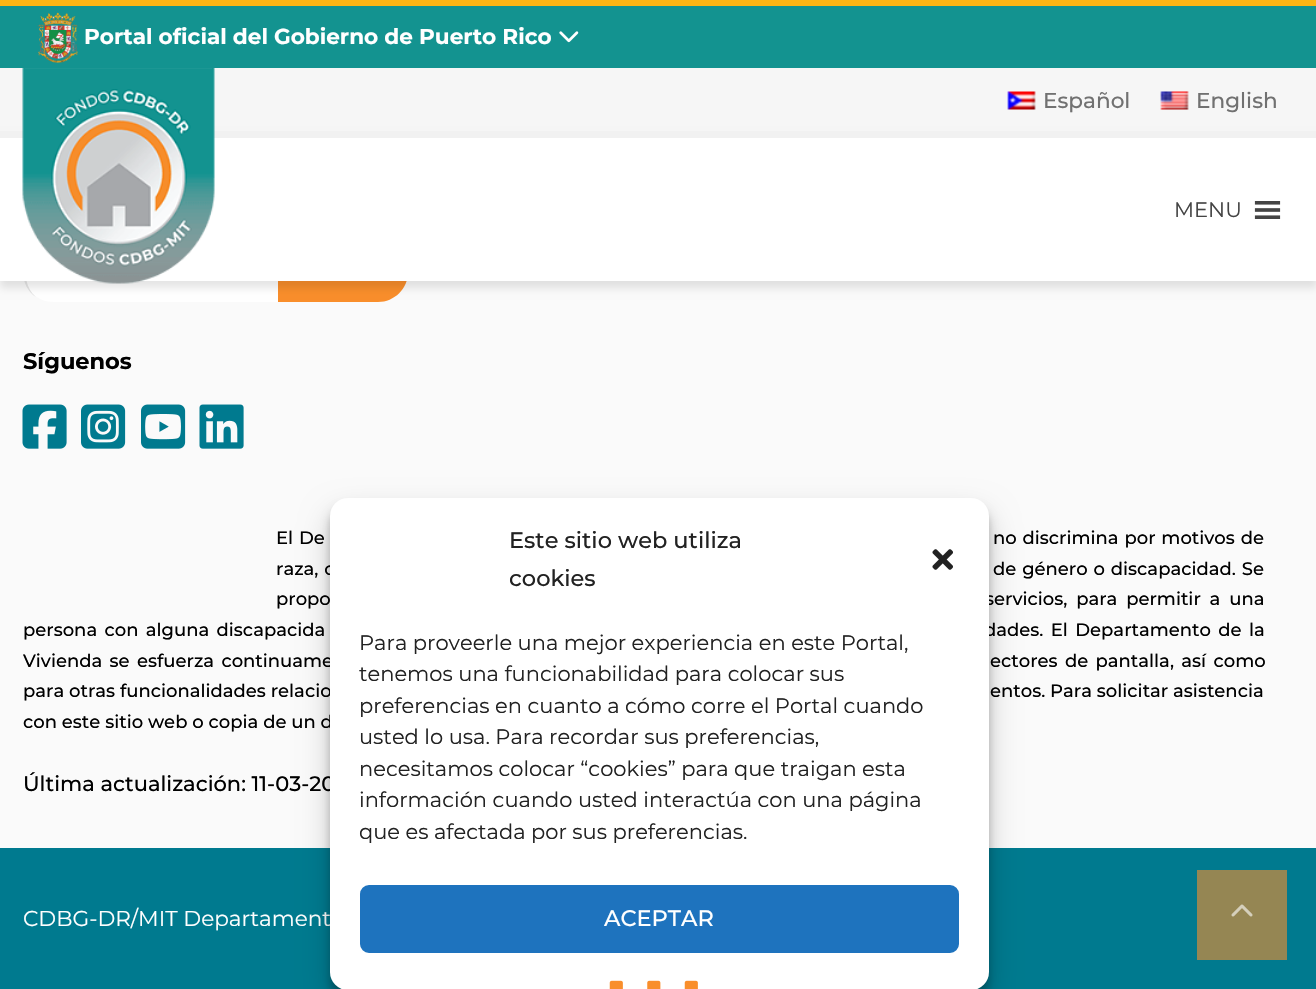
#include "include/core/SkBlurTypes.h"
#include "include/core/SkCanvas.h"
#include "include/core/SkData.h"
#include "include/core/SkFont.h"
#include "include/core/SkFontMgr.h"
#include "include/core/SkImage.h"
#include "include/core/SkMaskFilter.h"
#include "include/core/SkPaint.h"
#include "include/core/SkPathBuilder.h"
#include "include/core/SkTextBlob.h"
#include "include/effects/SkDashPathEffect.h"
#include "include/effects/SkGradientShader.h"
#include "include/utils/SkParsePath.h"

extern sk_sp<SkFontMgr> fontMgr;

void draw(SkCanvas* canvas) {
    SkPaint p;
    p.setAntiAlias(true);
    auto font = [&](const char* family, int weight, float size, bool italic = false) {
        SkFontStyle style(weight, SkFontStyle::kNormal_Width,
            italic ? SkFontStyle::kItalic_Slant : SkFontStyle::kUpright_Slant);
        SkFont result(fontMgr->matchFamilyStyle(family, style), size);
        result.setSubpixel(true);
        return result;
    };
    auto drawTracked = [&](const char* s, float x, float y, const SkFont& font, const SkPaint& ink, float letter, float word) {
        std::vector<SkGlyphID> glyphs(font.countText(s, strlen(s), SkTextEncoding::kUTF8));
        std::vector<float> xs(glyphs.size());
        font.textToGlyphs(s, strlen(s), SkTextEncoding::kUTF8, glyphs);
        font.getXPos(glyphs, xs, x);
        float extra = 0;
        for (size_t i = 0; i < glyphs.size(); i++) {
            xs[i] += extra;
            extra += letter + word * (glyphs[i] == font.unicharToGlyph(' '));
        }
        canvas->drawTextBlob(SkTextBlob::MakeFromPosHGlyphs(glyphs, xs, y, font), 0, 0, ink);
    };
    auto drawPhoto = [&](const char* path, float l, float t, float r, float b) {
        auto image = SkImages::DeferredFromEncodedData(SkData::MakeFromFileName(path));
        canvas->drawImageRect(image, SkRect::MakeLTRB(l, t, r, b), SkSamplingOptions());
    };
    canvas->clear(0xFFFAFAFA);
    {
        const struct { float l, t, r, b; SkColor color; } items[] = {
            {0, 68, 1316, 131, 0xFFF6F6F6},
            {0, 0, 1316, 6, 0xFFFDB514},
            {0, 6, 1316, 68, 0xFF139390},
        };
        for (auto [l, t, r, b, color] : items) {
            p.setColor(color);
            canvas->drawRect(SkRect::MakeLTRB(l, t, r, b), p);
        }
    }
    drawPhoto("media/1.png", 37, 12, 78, 63);
    auto font1 = font("Montserrat", 700, 21.6f);
    p.setColor(0xFFFFFFFF);
    canvas->drawString("Portal oficial del Gobierno de Puerto Rico", 84, 44, font1, p);
    drawPhoto("media/2.png", 559, 31, 579, 43);
    drawPhoto("media/3.png", 1007, 91, 1036, 110);
    auto font2 = font("Montserrat", 500, 21.6f);
    p.setColor(0xFF717171);
    canvas->drawString("Español", 1043, 108, font2, p);
    drawPhoto("media/4.png", 1160, 91, 1189, 110);
    canvas->drawString("English", 1196, 108, font2, p);
    p.setColor(0xFFFFFFFF);
    canvas->drawPath(SkPathBuilder().moveTo(53, 239).lineTo(278, 239).lineTo(278, 302).lineTo(53, 302).cubicTo(36.5f, 302, 23, 288.5f, 23, 272).lineTo(23, 269).cubicTo(23, 252.5f, 36.5f, 239, 53, 239).close().detach(), p);
    p.setColor(0x1A000000);
    canvas->drawPath(SkPathBuilder().moveTo(56, 242).lineTo(278, 242).lineTo(278, 239).lineTo(53, 239).cubicTo(36, 239, 23, 252, 23, 269).lineTo(23, 272).cubicTo(23, 282, 28, 292, 36, 297).cubicTo(16, 279, 27, 242, 56, 242).close().detach(), p);
    p.setColor(0xFFF98E2B);
    canvas->drawPath(SkPathBuilder().moveTo(278, 240).lineTo(378, 240).cubicTo(394.5f, 240, 408, 253.5f, 408, 270).lineTo(408, 272).cubicTo(408, 288.5f, 394.5f, 302, 378, 302).lineTo(278, 302).close().detach(), p);
    p.setColor(0x1A000000);
    p.setMaskFilter(SkMaskFilter::MakeBlur(kNormal_SkBlurStyle, 4));
    canvas->drawRect(SkRect::MakeLTRB(0, 138, 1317, 288), p);
    p.setMaskFilter(nullptr);
    p.setColor(0xFFFFFFFF);
    canvas->drawRect(SkRect::MakeLTRB(0, 138, 1316, 281), p);
    p.setColor(0xFFF1F1F1);
    canvas->drawRect(SkRect::MakeLTRB(0, 131, 1316, 138), p);
    drawPhoto("media/5.png", 22, 68, 215, 284);
    auto font3 = font("Montserrat", 400, 21);
    p.setColor(0xFF444444);
    canvas->drawString("MENU", 1174, 217, font3, p);
    drawPhoto("media/6.png", 1254, 201, 1281, 219);
    auto font4 = font("Montserrat", 700, 22.5f);
    p.setColor(0xFF000000);
    canvas->drawString("Síguenos", 23, 369, font4, p);
    drawPhoto("media/7.png", 22, 404, 67, 449);
    drawPhoto("media/8.png", 81, 404, 126, 449);
    drawPhoto("media/9.png", 141, 404, 186, 449);
    drawPhoto("media/10.png", 199, 404, 244, 449);
    auto font5 = font("Montserrat", 500, 18);
    {
        const struct { const char* s; float x, y; } items[] = {
            {"El De", 276, 544},
            {"no discrimina por motivos de", 993, 544},
            {"raza, c", 276, 575},
            {"de género o discapacidad. Se", 993, 575},
        };
        for (auto [s, x, y] : items) {
            drawTracked(s, x, y, font5, p, 0, 1);
        }
    }
    drawTracked("propo", 276, 605, font5, p, 0, 4);
    drawTracked("servicios, para permitir a una", 985, 605, font5, p, 0, 4);
    {
        const struct { const char* s; float x, y; } items[] = {
            {"persona con alguna discapacida", 23, 636},
            {"dades. El Departamento de la", 984, 636},
            {"Vivienda se esfuerza continuame", 23, 667},
            {"ectores de pantalla, así como", 990, 667},
        };
        for (auto [s, x, y] : items) {
            drawTracked(s, x, y, font5, p, 0, 2.5f);
        }
    }
    {
        const struct { const char* s; float x, y; } items[] = {
            {"para otras funcionalidades relacio", 23, 697},
            {"entos. Para solicitar asistencia", 990, 697},
            {"con este sitio web o copia de un d", 23, 728},
        };
        for (auto [s, x, y] : items) {
            canvas->drawString(s, x, y, font5, p);
        }
    }
    auto font6 = font("Montserrat", 500, 21);
    canvas->drawString("Última actualización: 11-03-20", 23, 791, font6, p);
    p.setColor(0xFF007A8F);
    canvas->drawRect(SkRect::MakeLTRB(0, 848, 1316, 989), p);
    auto font7 = font("Montserrat", 400, 21.6f);
    p.setColor(0xFFFFFFFF);
    canvas->drawString("CDBG-DR/MIT Departament", 23, 926, font7, p);
    p.setColor(0xFF958653);
    canvas->drawRect(SkRect::MakeLTRB(1197, 870, 1287, 960), p);
    drawPhoto("media/11.png", 1231, 904, 1253, 917);
    p.setColor(0x3B000000);
    p.setMaskFilter(SkMaskFilter::MakeBlur(kNormal_SkBlurStyle, 4.5f));
    canvas->drawRoundRect(SkRect::MakeLTRB(330, 507, 989, 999), 18, 18, p);
    p.setMaskFilter(nullptr);
    p.setColor(0x30000000);
    p.setMaskFilter(SkMaskFilter::MakeBlur(kNormal_SkBlurStyle, 15));
    canvas->drawRoundRect(SkRect::MakeLTRB(330, 513, 989, 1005), 18, 18, p);
    p.setMaskFilter(nullptr);
    p.setColor(0xFFFFFFFF);
    canvas->drawRoundRect(SkRect::MakeLTRB(330, 498, 989, 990), 18, 18, p);
    auto font8 = font("Montserrat", 500, 22.5f);
    p.setColor(0xFF222222);
    canvas->drawString("Este sitio web utiliza", 509, 548, font8, p);
    canvas->drawString("cookies", 509, 586, font8, p);
    drawPhoto("media/12.png", 932, 549, 953, 570);
    {
        const struct { const char* s; float x, y; } items[] = {
            {"Para proveerle una mejor experiencia en este Portal,", 359, 650},
            {"tenemos una funcionabilidad para colocar sus", 359, 681},
            {"preferencias en cuanto a cómo corre el Portal cuando", 359, 713},
            {"usted lo usa. Para recordar sus preferencias,", 359, 744},
            {"necesitamos colocar “cookies” para que traigan esta", 359, 776},
            {"información cuando usted interactúa con una página", 359, 807},
            {"que es afectada por sus preferencias.", 359, 839},
        };
        for (auto [s, x, y] : items) {
            canvas->drawString(s, x, y, font3, p);
        }
    }
    p.setColor(0xFF1E73BE);
    canvas->drawRoundRect(SkRect::MakeLTRB(361, 886, 958, 952), 8, 8, p);
    p.setStyle(SkPaint::kStroke_Style);
    p.setStrokeWidth(2);
    canvas->drawRoundRect(SkRect::MakeLTRB(361, 886, 958, 952), 8, 8, p);
    p.setStyle(SkPaint::kFill_Style);
    p.setColor(0xFFFFFFFF);
    canvas->drawString("ACEPTAR", 604, 926, font8, p);
    drawPhoto("media/13.png", 609, 980, 623, 989);
    drawPhoto("media/14.png", 647, 980, 661, 989);
    drawPhoto("media/13.png", 684, 980, 698, 989);
}
